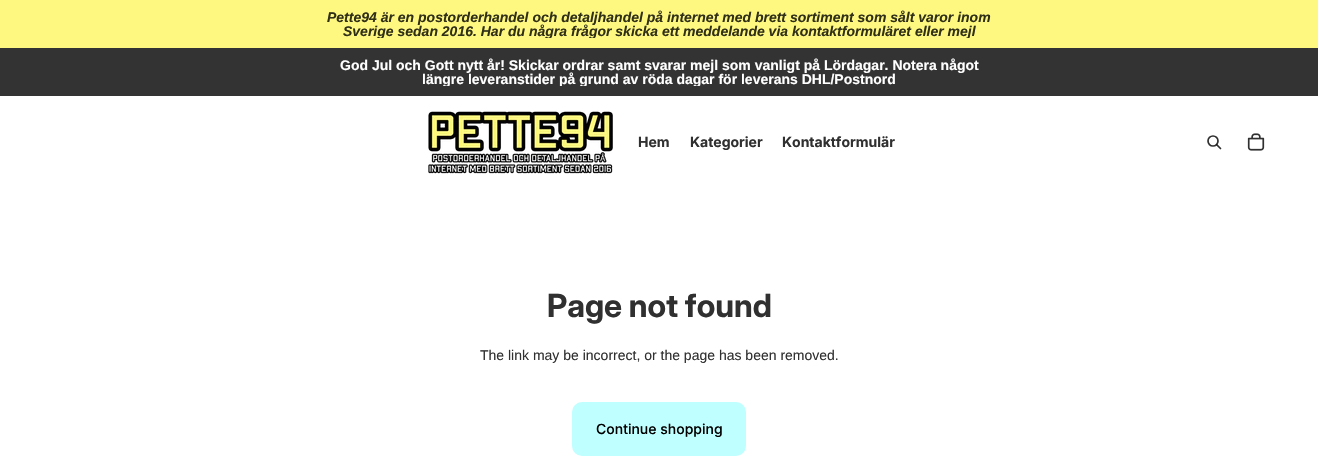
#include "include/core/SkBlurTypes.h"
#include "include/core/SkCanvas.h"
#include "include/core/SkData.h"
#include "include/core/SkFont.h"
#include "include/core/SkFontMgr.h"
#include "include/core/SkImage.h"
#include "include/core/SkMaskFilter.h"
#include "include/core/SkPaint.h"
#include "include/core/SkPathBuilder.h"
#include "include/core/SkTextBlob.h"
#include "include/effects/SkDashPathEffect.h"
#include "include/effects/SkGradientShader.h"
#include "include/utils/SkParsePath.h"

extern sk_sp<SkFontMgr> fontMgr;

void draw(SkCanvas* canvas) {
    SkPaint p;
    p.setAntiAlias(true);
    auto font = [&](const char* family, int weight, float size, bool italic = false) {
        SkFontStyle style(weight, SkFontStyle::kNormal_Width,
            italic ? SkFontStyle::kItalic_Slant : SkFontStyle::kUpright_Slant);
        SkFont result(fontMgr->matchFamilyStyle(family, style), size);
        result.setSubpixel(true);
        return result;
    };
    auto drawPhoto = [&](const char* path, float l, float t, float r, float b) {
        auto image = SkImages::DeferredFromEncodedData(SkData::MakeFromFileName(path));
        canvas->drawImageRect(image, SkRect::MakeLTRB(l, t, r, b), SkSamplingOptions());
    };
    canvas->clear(0xFFFFFFFF);
    p.setColor(0xFFFEF880);
    canvas->drawRect(SkRect::MakeLTRB(0, 0, 1318, 48), p);
    auto font1 = font("Liberation Sans", 700, 14, true);
    p.setColor(0xFF302F18);
    canvas->drawString("Pette94 är en postorderhandel och detaljhandel på internet med brett sortiment som sålt varor inom", 327, 22, font1, p);
    canvas->save();
    canvas->clipRect(SkRect::MakeLTRB(319, 10, 999, 38));
    canvas->drawString("Sverige sedan 2016. Har du några frågor skicka ett meddelande via kontaktformuläret eller mejl", 343, 36, font1, p);
    canvas->restore();
    p.setColor(0xFF333333);
    canvas->drawRect(SkRect::MakeLTRB(0, 48, 1318, 96), p);
    auto font2 = font("Liberation Sans", 700, 14);
    p.setColor(0xFFFFFFFF);
    canvas->drawString("God Jul och Gott nytt år! Skickar ordrar samt svarar mejl som vanligt på Lördagar. Notera något", 340, 70, font2, p);
    canvas->save();
    canvas->clipRect(SkRect::MakeLTRB(319, 58, 999, 86));
    canvas->drawString("längre leveranstider på grund av röda dagar för leverans DHL/Postnord", 422, 84, font2, p);
    canvas->restore();
    drawPhoto("media/1.png", 428, 111, 613, 174);
    auto font3 = font("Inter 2", 700, 14);
    p.setColor(0xFF303030);
    {
        const struct { const char* s; float x, y; } items[] = {
            {"Hem", 638, 147},
            {"Kategorier", 690, 147},
            {"Kontaktformulär", 782, 147},
        };
        for (auto [s, x, y] : items) {
            canvas->drawString(s, x, y, font3, p);
        }
    }
    p.setStyle(SkPaint::kStroke_Style);
    p.setStrokeWidth(1.7f);
    canvas->drawCircle(1213, 141, 5, p);
    p.setStrokeCap(SkPaint::kRound_Cap);
    p.setStrokeJoin(SkPaint::kRound_Join);
    p.setColor(0xCF000000);
    canvas->drawPath(SkPathBuilder().moveTo(1217, 145).lineTo(1220.5f, 148.5f).detach(), p);
    drawPhoto("media/2.png", 1247, 133, 1265, 151);
    auto font4 = font("Inter", 700, 32);
    p.setStyle(SkPaint::kFill_Style);
    p.setColor(0xFF303030);
    canvas->drawString("Page not found", 547, 317, font4, p);
    auto font5 = font("Liberation Sans", 400, 14);
    canvas->drawString("The link may be incorrect, or the page has been removed.", 480, 360, font5, p);
    p.setColor(0xFFBFFFFF);
    canvas->drawRoundRect(SkRect::MakeLTRB(572, 402, 746, 456), 10, 10, p);
    auto font6 = font("Inter", 500, 14);
    p.setColor(0xFF000000);
    canvas->drawString("Continue shopping", 596, 434, font6, p);
}
